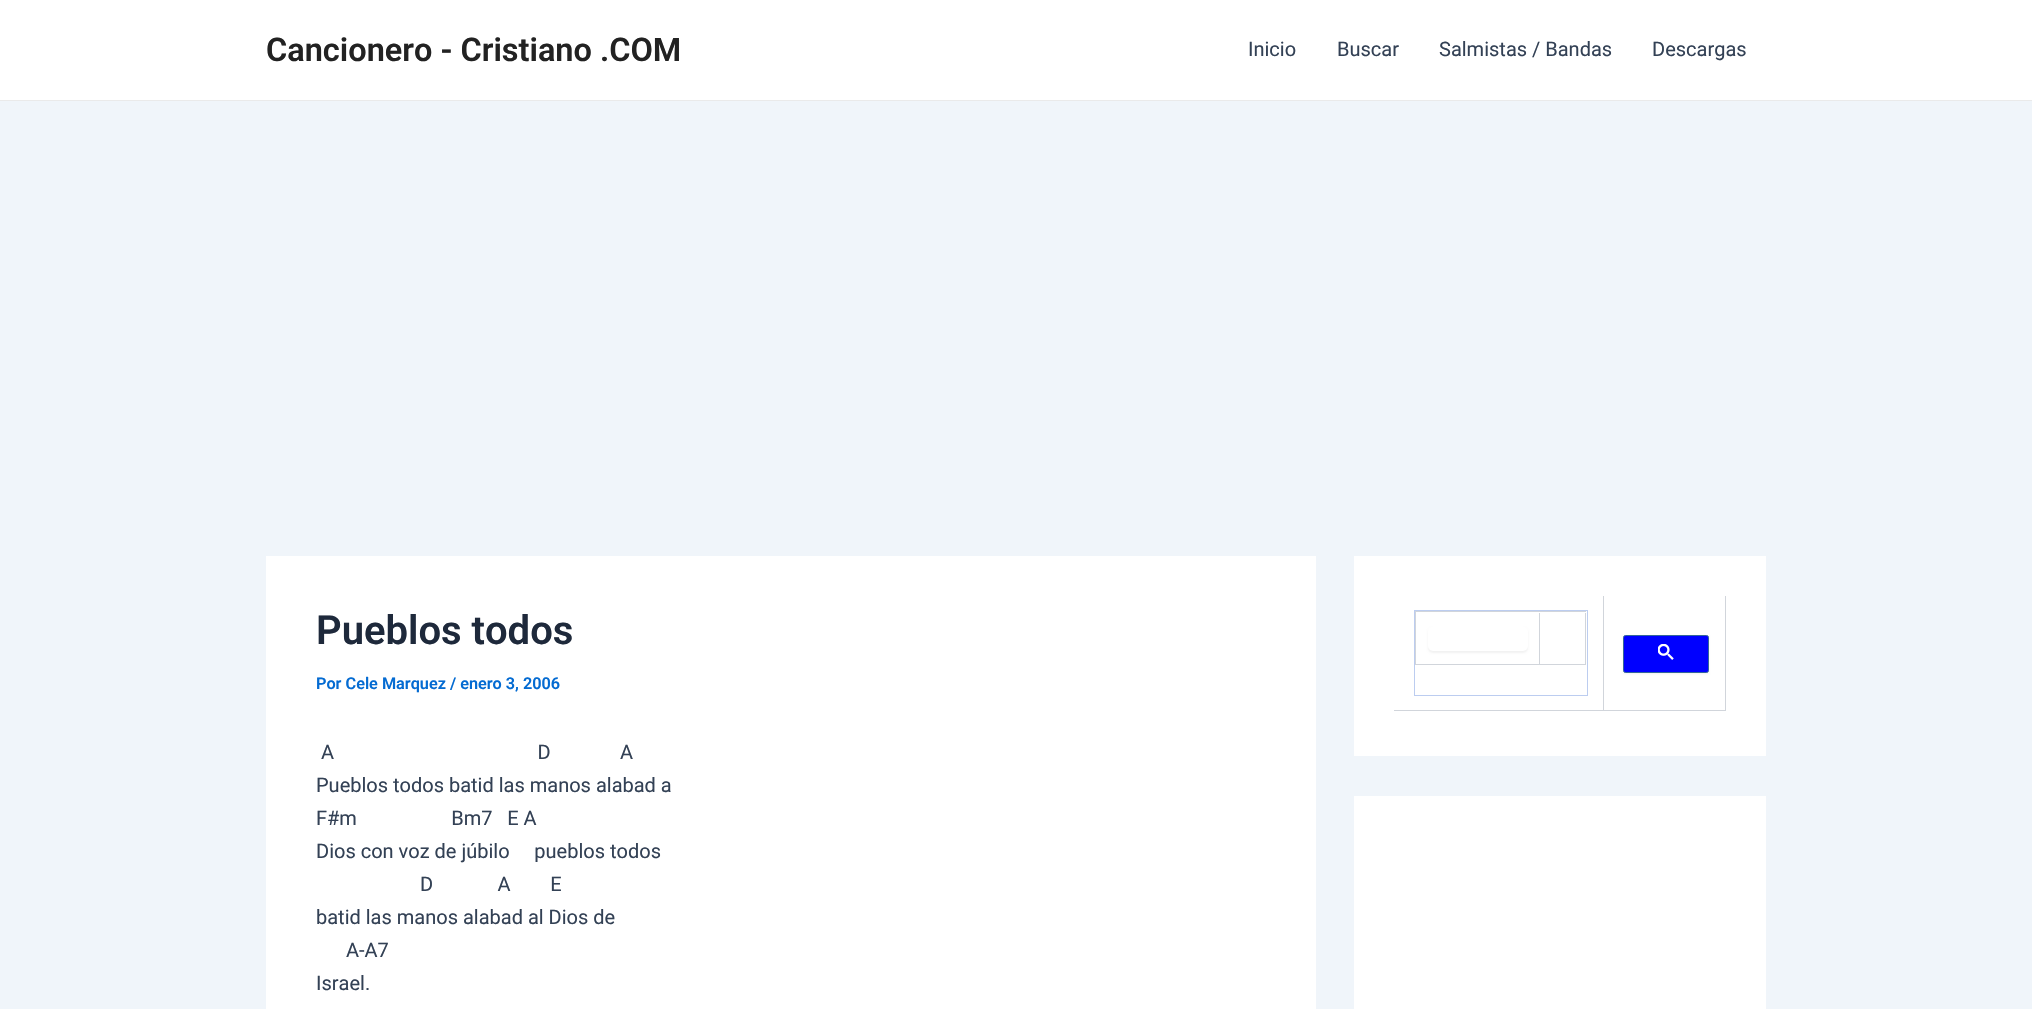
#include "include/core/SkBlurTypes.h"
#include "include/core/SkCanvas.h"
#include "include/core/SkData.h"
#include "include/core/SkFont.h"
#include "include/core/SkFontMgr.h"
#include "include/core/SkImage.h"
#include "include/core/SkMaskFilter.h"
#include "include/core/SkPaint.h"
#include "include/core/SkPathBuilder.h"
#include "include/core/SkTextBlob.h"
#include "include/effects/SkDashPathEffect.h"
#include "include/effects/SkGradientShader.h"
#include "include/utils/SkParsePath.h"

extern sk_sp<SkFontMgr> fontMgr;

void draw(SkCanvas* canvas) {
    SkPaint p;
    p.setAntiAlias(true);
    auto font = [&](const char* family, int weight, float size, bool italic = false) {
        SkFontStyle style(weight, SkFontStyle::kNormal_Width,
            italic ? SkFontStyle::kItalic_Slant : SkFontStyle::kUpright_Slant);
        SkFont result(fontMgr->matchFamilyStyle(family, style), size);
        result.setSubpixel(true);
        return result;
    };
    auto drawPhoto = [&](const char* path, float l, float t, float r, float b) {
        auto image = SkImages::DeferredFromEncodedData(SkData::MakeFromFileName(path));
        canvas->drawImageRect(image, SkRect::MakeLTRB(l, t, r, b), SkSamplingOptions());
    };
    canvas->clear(0xFFF0F5FA);
    p.setColor(0xFFFFFFFF);
    canvas->drawRect(SkRect::MakeLTRB(0, 0, 2032, 100), p);
    p.setColor(0xFFEAEAEA);
    canvas->drawRect(SkRect::MakeLTRB(0, 100, 2032, 101), p);
    auto font1 = font("Roboto", 600, 32.5f);
    p.setColor(0xFF222222);
    canvas->drawString("Cancionero - Cristiano .COM", 266, 61, font1, p);
    auto font2 = font("Roboto", 400, 20);
    p.setColor(0xFF334155);
    {
        const struct { const char* s; float x, y; } items[] = {
            {"Inicio", 1248, 56},
            {"Buscar", 1337, 56},
            {"Salmistas / Bandas", 1439, 56},
            {"Descargas", 1652, 56},
        };
        for (auto [s, x, y] : items) {
            canvas->drawString(s, x, y, font2, p);
        }
    }
    p.setColor(0xFFFFFFFF);
    canvas->drawRect(SkRect::MakeLTRB(266, 556, 1316, 1009), p);
    auto font3 = font("Roboto", 600, 40);
    p.setColor(0xFF1E293B);
    canvas->drawString("Pueblos todos", 316, 644, font3, p);
    auto font4 = font("Roboto", 600, 16.25f);
    p.setColor(0xFF046BD2);
    canvas->drawString("Por Cele Marquez / enero 3, 2006", 316, 689, font4, p);
    p.setColor(0xFF334155);
    {
        const struct { const char* s; float x, y; } items[] = {
            {"A                                         D              A", 321, 759},
            {"Pueblos todos batid las manos alabad a", 316, 792},
            {"F#m                   Bm7   E A", 316, 825},
            {"Dios con voz de júbilo     pueblos todos", 316, 858},
            {"D             A        E", 420, 891},
            {"batid las manos alabad al Dios de", 316, 924},
            {"A-A7", 346, 957},
            {"Israel.", 316, 990},
        };
        for (auto [s, x, y] : items) {
            canvas->drawString(s, x, y, font2, p);
        }
    }
    {
        const struct { float l, t, r, b; SkColor color; } items[] = {
            {1354, 556, 1766, 756, 0xFFFFFFFF},
            {1603, 596, 1604, 711, 0xFFD1D5DB},
            {1394, 710, 1604, 711, 0xFFD1D5DB},
        };
        for (auto [l, t, r, b, color] : items) {
            p.setColor(color);
            canvas->drawRect(SkRect::MakeLTRB(l, t, r, b), p);
        }
    }
    p.setStyle(SkPaint::kStroke_Style);
    p.setStrokeWidth(1);
    p.setColor(0xFFBCCDF0);
    canvas->drawRect(SkRect::MakeLTRB(1414.5f, 610.5f, 1587.5f, 695.5f), p);
    p.setStyle(SkPaint::kFill_Style);
    {
        const struct { float l, t, r, b; SkColor color; } items[] = {
            {1415, 611, 1586, 612, 0xFFD1D5DB},
            {1415, 611, 1416, 665, 0xFFD1D5DB},
            {1539, 613, 1540, 665, 0xFFD1D5DB},
            {1416, 664, 1540, 665, 0xFFD1D5DB},
        };
        for (auto [l, t, r, b, color] : items) {
            p.setColor(color);
            canvas->drawRect(SkRect::MakeLTRB(l, t, r, b), p);
        }
    }
    p.setColor(0x0D000000);
    p.setMaskFilter(SkMaskFilter::MakeBlur(kNormal_SkBlurStyle, 1));
    canvas->drawRoundRect(SkRect::MakeLTRB(1428, 628, 1528, 653), 5, 5, p);
    p.setMaskFilter(nullptr);
    p.setColor(0xFFFFFFFF);
    canvas->drawRoundRect(SkRect::MakeLTRB(1428, 626, 1528, 651), 5, 5, p);
    {
        const struct { float l, t, r, b; SkColor color; } items[] = {
            {1585, 613, 1586, 665, 0xFFD1D5DB},
            {1540, 664, 1586, 665, 0xFFD1D5DB},
            {1725, 596, 1726, 711, 0xFFD1D5DB},
            {1604, 710, 1726, 711, 0xFFD1D5DB},
        };
        for (auto [l, t, r, b, color] : items) {
            p.setColor(color);
            canvas->drawRect(SkRect::MakeLTRB(l, t, r, b), p);
        }
    }
    p.setColor(0x0D000000);
    p.setMaskFilter(SkMaskFilter::MakeBlur(kNormal_SkBlurStyle, 1));
    canvas->drawRoundRect(SkRect::MakeLTRB(1623, 636, 1709, 674), 2.5f, 2.5f, p);
    p.setMaskFilter(nullptr);
    p.setColor(0xFF0000FF);
    canvas->drawRoundRect(SkRect::MakeLTRB(1623.5f, 635.5f, 1708.5f, 672.5f), 2, 2, p);
    p.setStyle(SkPaint::kStroke_Style);
    p.setColor(0xFF336699);
    canvas->drawRoundRect(SkRect::MakeLTRB(1623.5f, 635.5f, 1708.5f, 672.5f), 2, 2, p);
    drawPhoto("media/1.png", 1658, 644, 1674, 660);
    p.setStyle(SkPaint::kFill_Style);
    p.setColor(0xFFFFFFFF);
    canvas->drawRect(SkRect::MakeLTRB(1354, 796, 1766, 1009), p);
}
